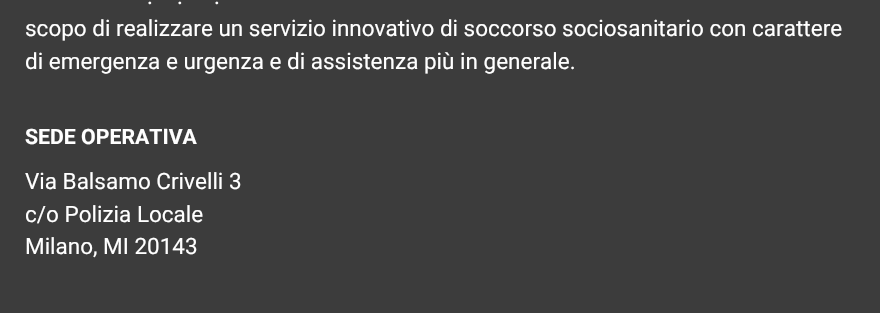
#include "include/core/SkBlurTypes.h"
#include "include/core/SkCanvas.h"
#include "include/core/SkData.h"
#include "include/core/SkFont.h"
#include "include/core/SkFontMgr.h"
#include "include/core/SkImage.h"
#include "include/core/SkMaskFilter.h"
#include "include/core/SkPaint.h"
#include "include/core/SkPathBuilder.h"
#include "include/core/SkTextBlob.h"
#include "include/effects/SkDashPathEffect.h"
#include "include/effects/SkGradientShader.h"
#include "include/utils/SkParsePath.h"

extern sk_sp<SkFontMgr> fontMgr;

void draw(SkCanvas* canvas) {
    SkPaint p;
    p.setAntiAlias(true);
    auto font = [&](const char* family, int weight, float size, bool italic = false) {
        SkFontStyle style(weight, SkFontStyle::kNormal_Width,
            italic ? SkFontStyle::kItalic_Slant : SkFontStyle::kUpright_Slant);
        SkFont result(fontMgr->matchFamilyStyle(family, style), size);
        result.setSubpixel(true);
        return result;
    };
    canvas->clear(0xFF3C3C3C);
    auto font1 = font("Roboto", 400, 22.5f);
    p.setColor(0xFFFFFFFF);
    {
        const struct { const char* s; float x, y; } items[] = {
            {".", 147, 4},
            {".", 177, 4},
            {".", 214, 4},
            {"scopo di realizzare un servizio innovativo di soccorso sociosanitario con carattere", 25, 36},
            {"di emergenza e urgenza e di assistenza più in generale.", 25, 69},
        };
        for (auto [s, x, y] : items) {
            canvas->drawString(s, x, y, font1, p);
        }
    }
    auto font2 = font("Roboto", 700, 21.25f);
    canvas->drawString("SEDE OPERATIVA", 25, 144, font2, p);
    {
        const struct { const char* s; float x, y; } items[] = {
            {"Via Balsamo Crivelli 3", 25, 189},
            {"c/o Polizia Locale", 25, 222},
            {"Milano, MI 20143", 25, 254},
        };
        for (auto [s, x, y] : items) {
            canvas->drawString(s, x, y, font1, p);
        }
    }
}
